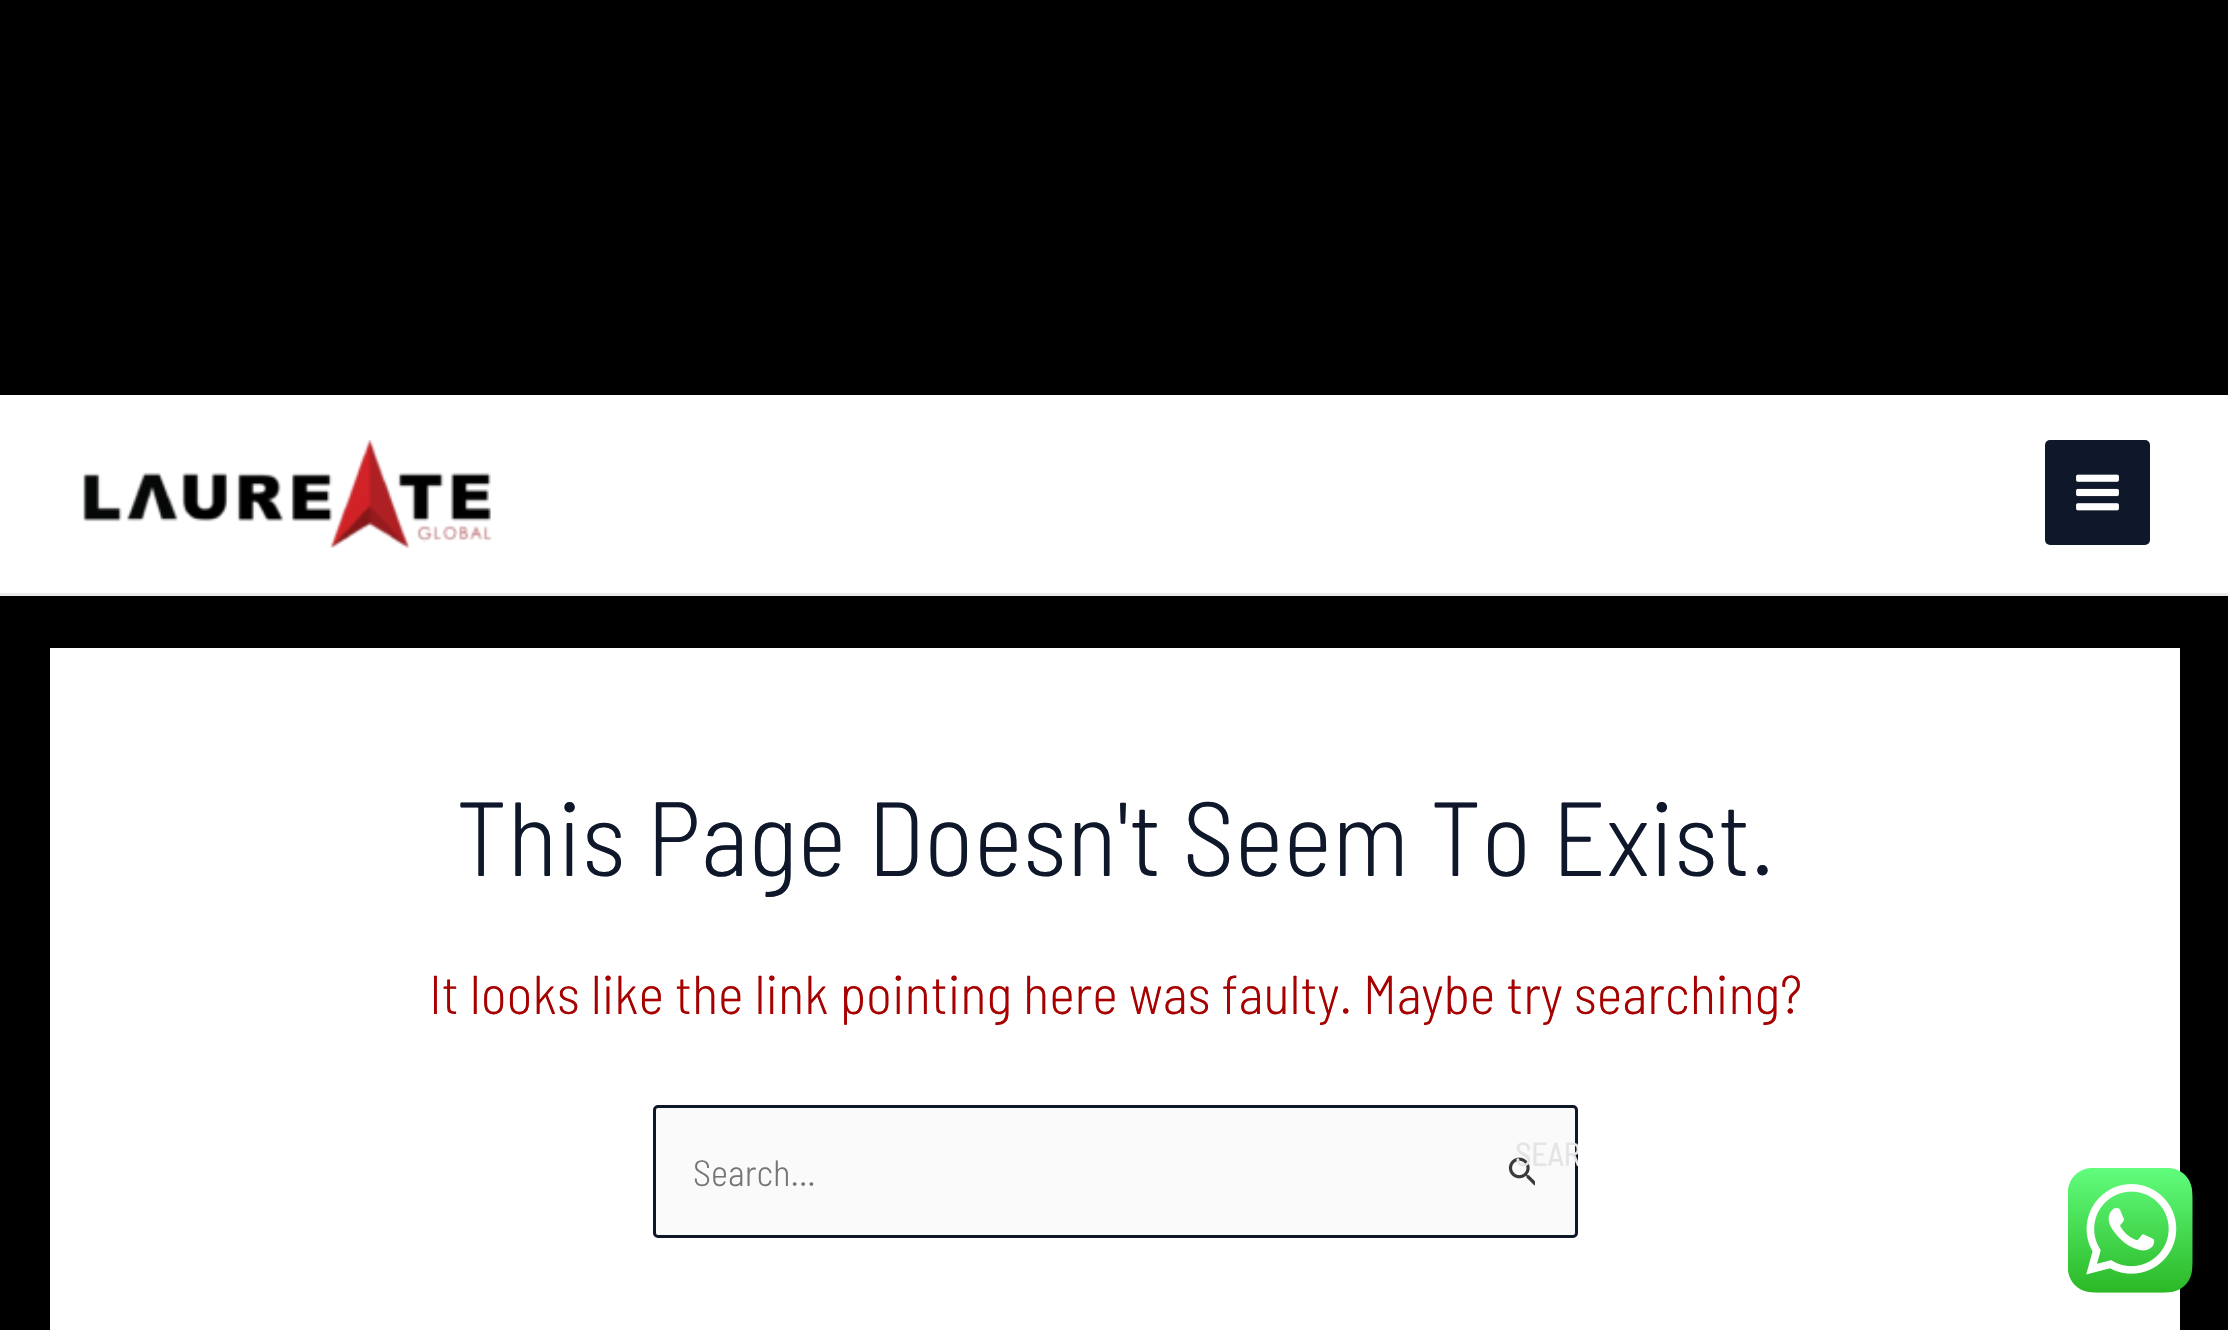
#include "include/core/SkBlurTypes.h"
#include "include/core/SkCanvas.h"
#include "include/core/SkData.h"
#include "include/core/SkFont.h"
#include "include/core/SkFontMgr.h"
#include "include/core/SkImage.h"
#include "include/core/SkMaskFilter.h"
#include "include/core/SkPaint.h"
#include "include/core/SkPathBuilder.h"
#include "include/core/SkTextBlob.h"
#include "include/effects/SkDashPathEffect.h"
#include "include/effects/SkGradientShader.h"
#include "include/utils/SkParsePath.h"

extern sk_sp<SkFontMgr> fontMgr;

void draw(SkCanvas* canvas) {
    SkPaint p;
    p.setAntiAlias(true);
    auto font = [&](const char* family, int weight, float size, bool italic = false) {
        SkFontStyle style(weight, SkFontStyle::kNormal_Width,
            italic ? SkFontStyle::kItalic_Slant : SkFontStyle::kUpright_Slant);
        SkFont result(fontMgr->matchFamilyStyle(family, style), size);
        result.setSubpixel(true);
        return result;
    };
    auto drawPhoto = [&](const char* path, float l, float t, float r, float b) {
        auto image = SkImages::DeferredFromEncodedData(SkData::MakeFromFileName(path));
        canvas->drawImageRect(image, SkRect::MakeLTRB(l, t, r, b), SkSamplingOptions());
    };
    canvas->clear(0xFF000000);
    p.setColor(0xFFFFFFFF);
    canvas->drawRect(SkRect::MakeLTRB(0, 395, 2228, 593), p);
    p.setColor(0xFFEAEAEA);
    canvas->drawRect(SkRect::MakeLTRB(0, 593, 2228, 596), p);
    drawPhoto("media/1.png", 82, 440, 493, 548);
    p.setColor(0xFF0F172A);
    canvas->drawRoundRect(SkRect::MakeLTRB(2045, 440, 2150, 545), 5, 5, p);
    drawPhoto("media/2.png", 2076, 474, 2119, 511);
    p.setColor(0xFFFFFFFF);
    canvas->drawRect(SkRect::MakeLTRB(50, 648, 2180, 1330), p);
    auto font1 = font("Barlow Semi Condensed", 300, 105);
    p.setColor(0xFF0F172A);
    canvas->drawString("This Page Doesn't Seem To Exist.", 456, 876, font1, p);
    auto font2 = font("Barlow Semi Condensed", 300, 54.75f);
    p.setColor(0xFFA70000);
    canvas->drawString("It looks like the link pointing here was faulty. Maybe try searching?", 429, 1014, font2, p);
    p.setColor(0xFFFAFAFA);
    canvas->drawRoundRect(SkRect::MakeLTRB(654.5f, 1106.5f, 1576.5f, 1236.5f), 3.5f, 3.5f, p);
    p.setStyle(SkPaint::kStroke_Style);
    p.setStrokeWidth(3);
    p.setColor(0xFF0F172A);
    canvas->drawRoundRect(SkRect::MakeLTRB(654.5f, 1106.5f, 1576.5f, 1236.5f), 3.5f, 3.5f, p);
    drawPhoto("media/3.png", 1508, 1157, 1535, 1186);
    canvas->save();
    canvas->clipPath(SkPathBuilder().moveTo(1470, 1105).lineTo(1573, 1105).cubicTo(1576, 1105, 1578, 1107, 1578, 1110).lineTo(1578, 1198).cubicTo(1578, 1201, 1576, 1203, 1573, 1203).lineTo(1470, 1203).cubicTo(1467, 1203, 1465, 1201, 1465, 1198).lineTo(1465, 1110).cubicTo(1465, 1107, 1467, 1105, 1470, 1105).close().detach(), true);
    auto font3 = font("Barlow Semi Condensed", 700, 32);
    p.setStyle(SkPaint::kFill_Style);
    p.setColor(0xFFE3E4E5);
    canvas->drawString("SEAR", 1515, 1166, font3, p);
    canvas->restore();
    auto font4 = font("Barlow Semi Condensed", 300, 36.5f);
    p.setColor(0xFF757575);
    canvas->drawString("Search...", 693, 1186, font4, p);
    drawPhoto("media/4.png", 2068, 1168, 2193, 1293);
}
